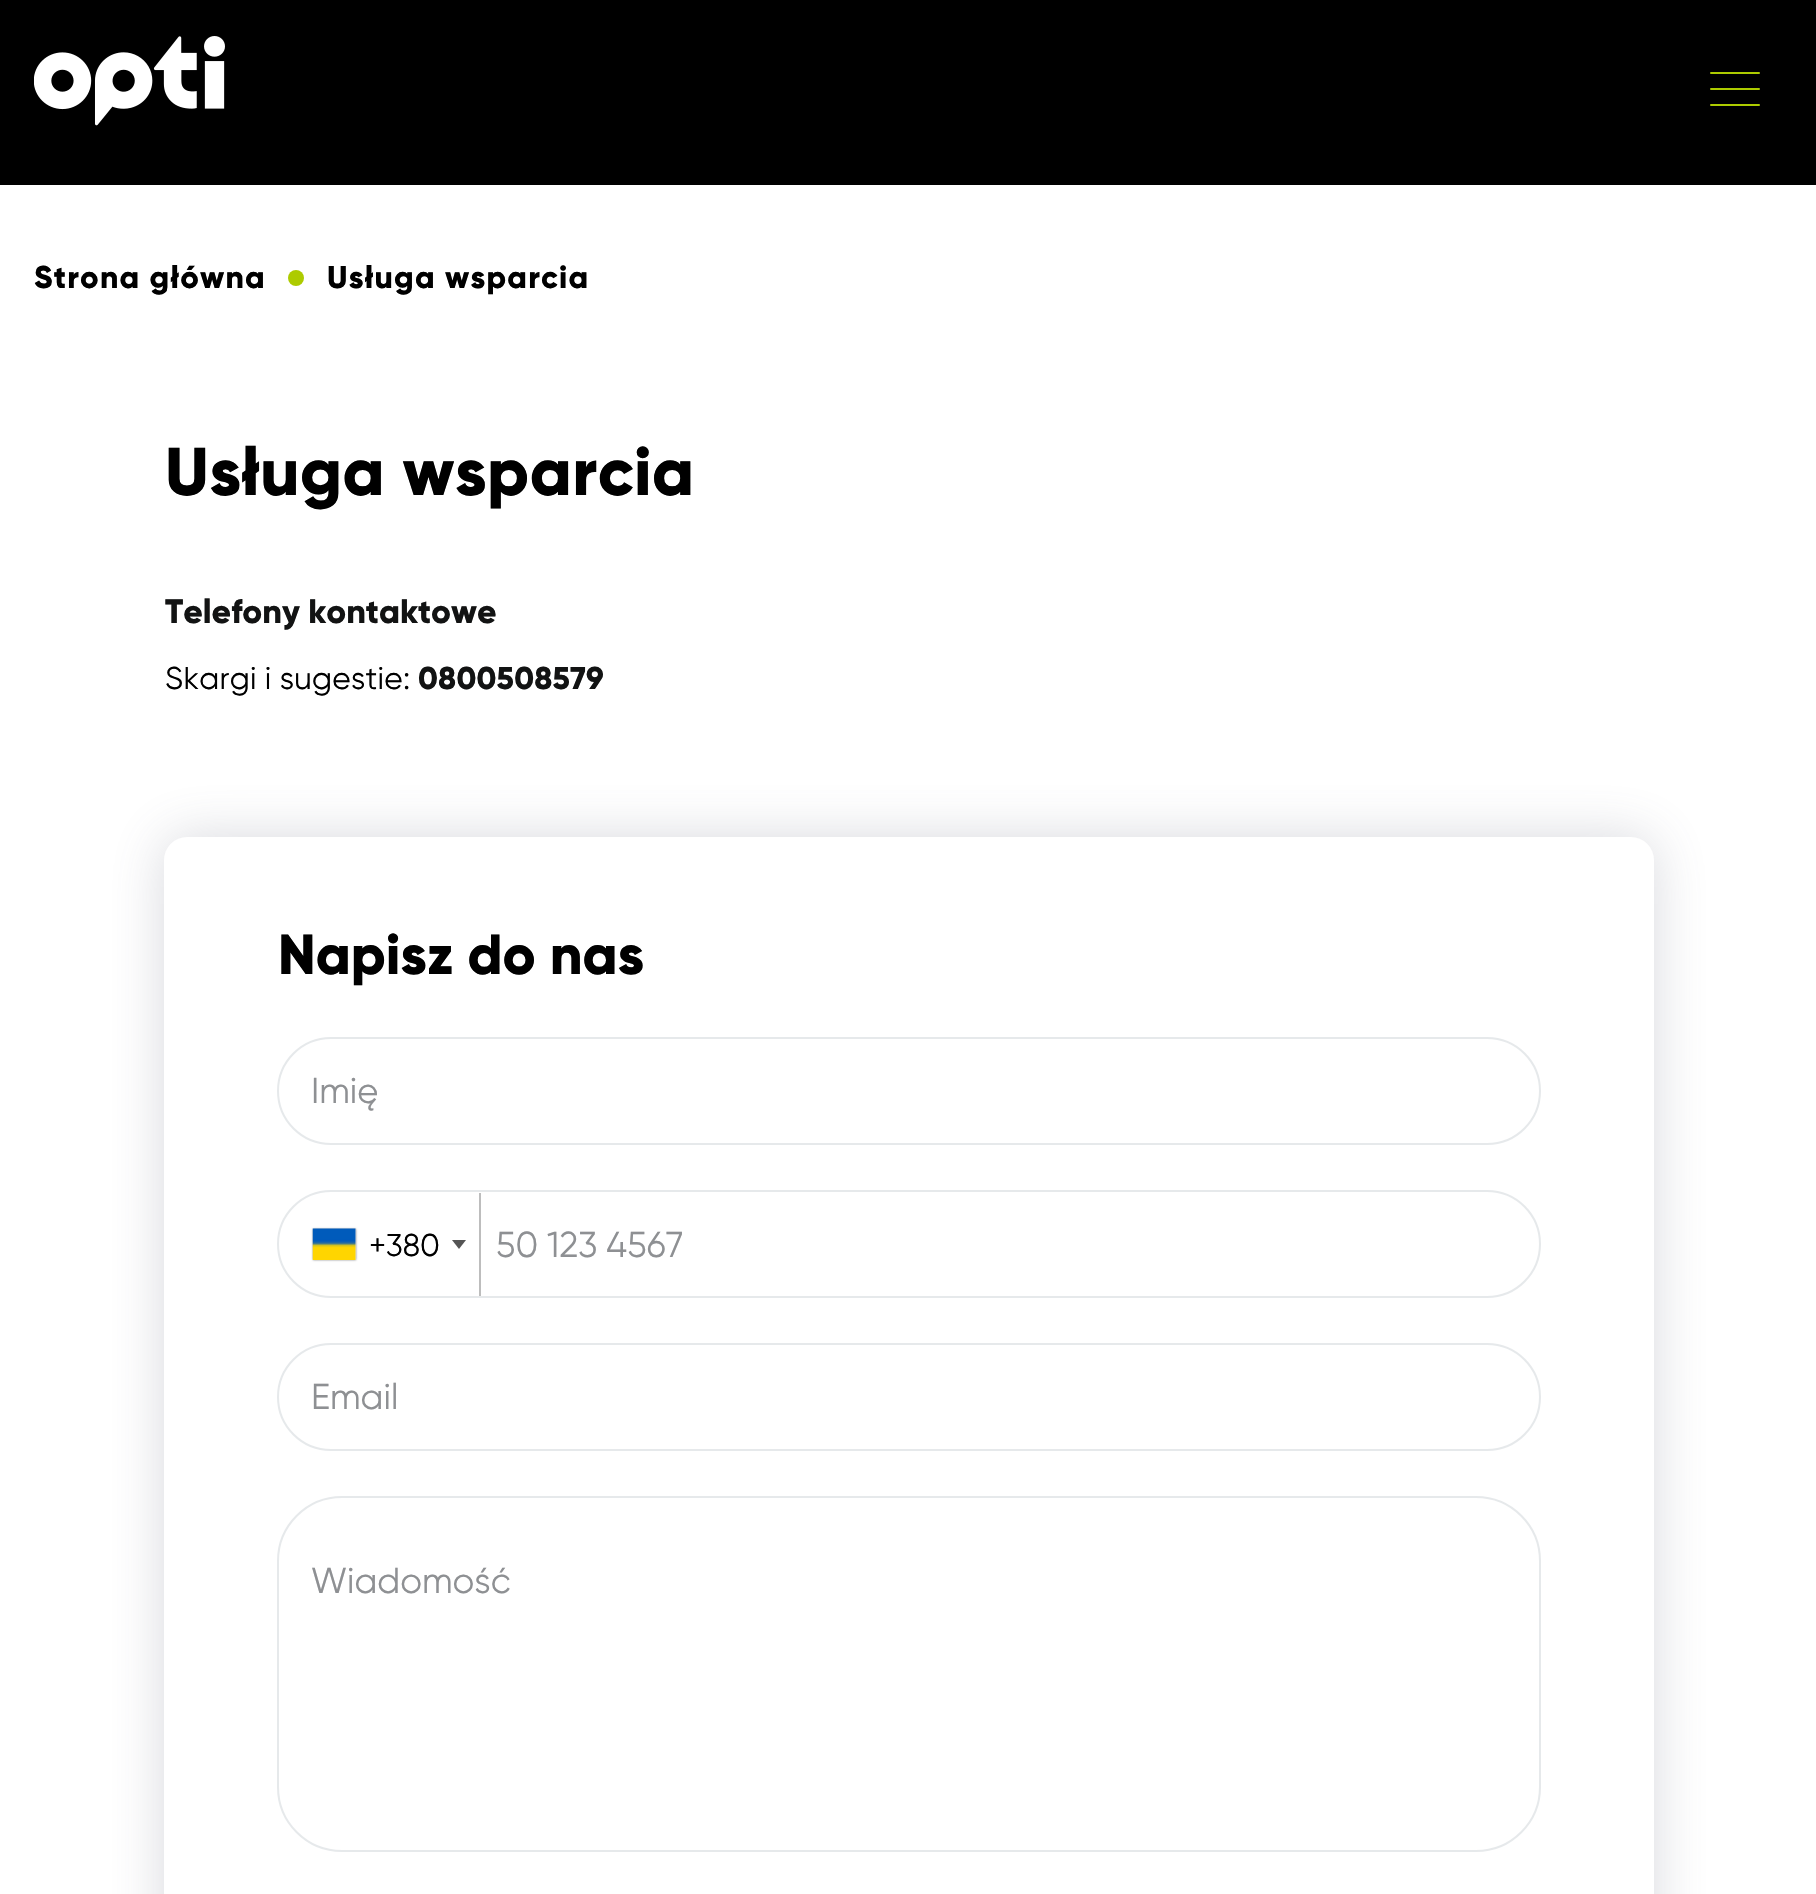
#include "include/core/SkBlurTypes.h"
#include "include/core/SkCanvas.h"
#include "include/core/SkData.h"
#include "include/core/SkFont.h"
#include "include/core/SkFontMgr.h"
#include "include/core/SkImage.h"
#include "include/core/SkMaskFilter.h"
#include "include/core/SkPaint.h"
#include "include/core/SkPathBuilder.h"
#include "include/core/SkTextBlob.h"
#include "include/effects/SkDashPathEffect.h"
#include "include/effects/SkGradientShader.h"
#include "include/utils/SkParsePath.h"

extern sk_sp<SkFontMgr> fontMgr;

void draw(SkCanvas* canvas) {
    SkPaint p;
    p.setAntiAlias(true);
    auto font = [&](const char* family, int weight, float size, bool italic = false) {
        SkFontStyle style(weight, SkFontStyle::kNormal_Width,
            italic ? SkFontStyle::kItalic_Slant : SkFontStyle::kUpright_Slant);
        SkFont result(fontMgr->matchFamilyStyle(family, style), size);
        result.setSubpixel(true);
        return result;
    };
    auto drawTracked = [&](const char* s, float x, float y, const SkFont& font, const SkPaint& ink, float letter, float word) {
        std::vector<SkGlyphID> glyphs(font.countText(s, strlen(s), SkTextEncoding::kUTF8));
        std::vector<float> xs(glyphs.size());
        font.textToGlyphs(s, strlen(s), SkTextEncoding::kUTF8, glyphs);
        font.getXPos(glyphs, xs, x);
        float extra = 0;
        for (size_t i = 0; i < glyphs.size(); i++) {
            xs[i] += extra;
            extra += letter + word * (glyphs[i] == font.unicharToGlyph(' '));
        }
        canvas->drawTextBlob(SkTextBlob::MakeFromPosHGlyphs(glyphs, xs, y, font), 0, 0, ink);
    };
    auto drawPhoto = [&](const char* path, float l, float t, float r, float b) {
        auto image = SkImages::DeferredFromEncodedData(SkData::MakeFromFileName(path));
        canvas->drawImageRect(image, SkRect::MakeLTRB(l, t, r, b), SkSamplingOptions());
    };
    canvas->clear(0xFFFFFFFF);
    p.setColor(0xFF000000);
    canvas->drawRect(SkRect::MakeLTRB(0, 0, 1816, 185), p);
    drawPhoto("media/1.png", 34, 36, 225, 126);
    p.setColor(0xFFADCB00);
    canvas->drawRoundRect(SkRect::MakeLTRB(1710, 88, 1760, 90), 1, 1, p);
    canvas->drawRoundRect(SkRect::MakeLTRB(1710, 72, 1760, 74), 1, 1, p);
    canvas->drawRoundRect(SkRect::MakeLTRB(1710, 104, 1760, 106), 1, 1, p);
    auto font1 = font("Gilroy", 800, 31.5f);
    p.setColor(0xFF000000);
    drawTracked("Strona główna", 34, 288, font1, p, 1.25f, 0);
    p.setColor(0xFFADCB00);
    canvas->drawCircle(296, 278, 8, p);
    p.setColor(0xFF000000);
    drawTracked("Usługa wsparcia", 327, 288, font1, p, 1.25f, 0);
    auto font2 = font("Gilroy", 800, 67.5f);
    drawTracked("Usługa wsparcia", 165, 495, font2, p, 0.5f, 0);
    auto font3 = font("Gilroy", 800, 33.75f);
    p.setColor(0xFF121313);
    canvas->drawString("Telefony kontaktowe", 165, 623, font3, p);
    auto font4 = font("Gilroy", 400, 31.5f);
    p.setColor(0xFF000000);
    drawTracked("Skargi i sugestie:", 165, 689, font4, p, 0.25f, 0);
    p.setColor(0xFF121313);
    drawTracked("0800508579", 418, 689, font1, p, 0.25f, 0);
    p.setColor(0x3D5B6275);
    p.setMaskFilter(SkMaskFilter::MakeBlur(kNormal_SkBlurStyle, 27));
    canvas->drawRoundRect(SkRect::MakeLTRB(164, 837, 1654, 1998), 23, 23, p);
    p.setMaskFilter(nullptr);
    p.setColor(0xFFFFFFFF);
    canvas->drawRoundRect(SkRect::MakeLTRB(164, 837, 1654, 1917), 23, 23, p);
    auto font5 = font("Gilroy", 800, 56.25f);
    p.setColor(0xFF000000);
    canvas->drawString("Napisz do nas", 278, 974, font5, p);
    p.setStyle(SkPaint::kStroke_Style);
    p.setStrokeWidth(2);
    p.setColor(0xFFE6E9EB);
    canvas->drawRoundRect(SkRect::MakeLTRB(278, 1038, 1540, 1144), 53, 53, p);
    auto font6 = font("Gilroy", 400, 36);
    p.setStyle(SkPaint::kFill_Style);
    p.setColor(0xFF8E9093);
    canvas->drawString("Imię", 311, 1103, font6, p);
    p.setStyle(SkPaint::kStroke_Style);
    p.setColor(0xFFE6E9EB);
    canvas->drawRoundRect(SkRect::MakeLTRB(278, 1191, 1540, 1297), 53, 53, p);
    p.setStyle(SkPaint::kFill_Style);
    p.setColor(0xFFBDBDBD);
    canvas->drawRect(SkRect::MakeLTRB(479, 1193, 481, 1296), p);
    p.setColor(0xFF888888);
    p.setMaskFilter(SkMaskFilter::MakeBlur(kNormal_SkBlurStyle, 1));
    canvas->drawRect(SkRect::MakeLTRB(313, 1229, 356, 1260), p);
    p.setMaskFilter(nullptr);
    p.setColor(0xFFDBDBDB);
    canvas->drawRect(SkRect::MakeLTRB(355, 1229, 356, 1260), p);
    drawPhoto("media/2.png", 312, 1228, 356, 1260);
    p.setColor(0xFF000000);
    canvas->drawString("+380", 369, 1256, font4, p);
    p.setColor(0xFF555555);
    canvas->drawPath(SkPathBuilder().moveTo(452, 1240).lineTo(466, 1240).lineTo(459, 1249).close().detach(), p);
    p.setColor(0xFF8E9093);
    canvas->drawString("50 123 4567", 496, 1257, font6, p);
    p.setStyle(SkPaint::kStroke_Style);
    p.setColor(0xFFE6E9EB);
    canvas->drawRoundRect(SkRect::MakeLTRB(278, 1344, 1540, 1450), 53, 53, p);
    p.setStyle(SkPaint::kFill_Style);
    p.setColor(0xFF8E9093);
    canvas->drawString("Email", 311, 1409, font6, p);
    p.setStyle(SkPaint::kStroke_Style);
    p.setColor(0xFFE6E9EB);
    canvas->drawRoundRect(SkRect::MakeLTRB(278, 1497, 1540, 1851), 64, 64, p);
    p.setStyle(SkPaint::kFill_Style);
    p.setColor(0xFF8E9093);
    canvas->drawString("Wiadomość", 311, 1593, font6, p);
}
